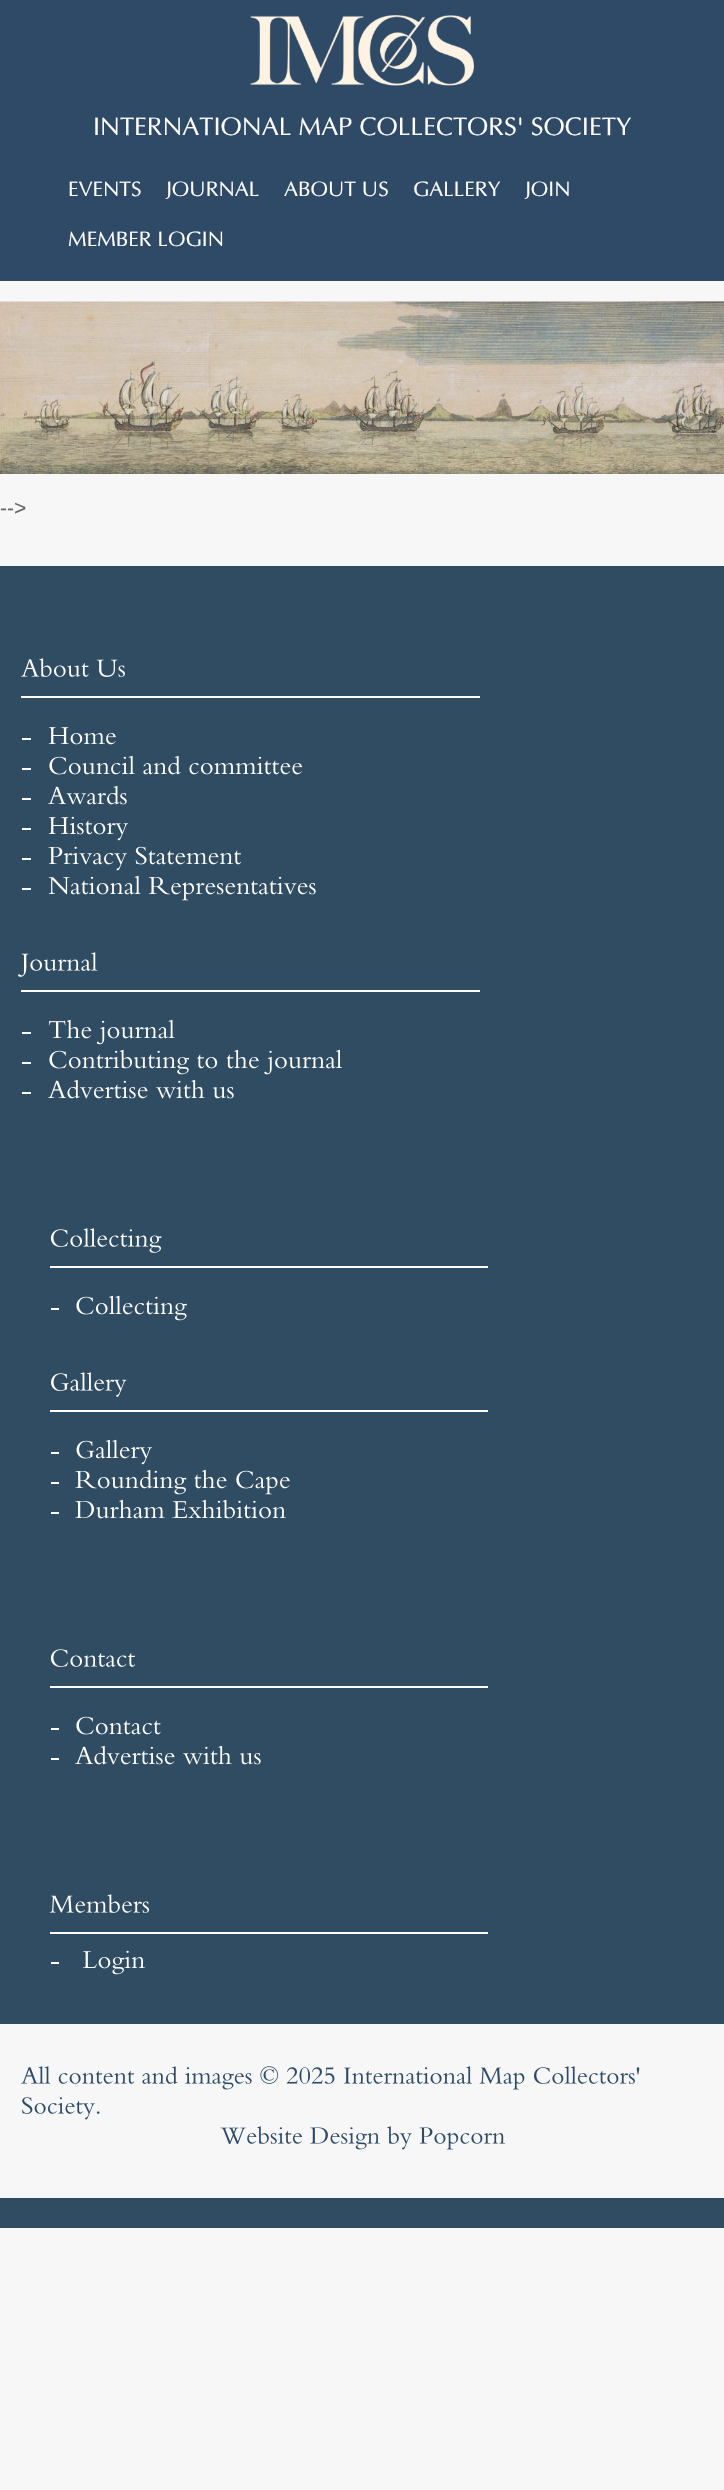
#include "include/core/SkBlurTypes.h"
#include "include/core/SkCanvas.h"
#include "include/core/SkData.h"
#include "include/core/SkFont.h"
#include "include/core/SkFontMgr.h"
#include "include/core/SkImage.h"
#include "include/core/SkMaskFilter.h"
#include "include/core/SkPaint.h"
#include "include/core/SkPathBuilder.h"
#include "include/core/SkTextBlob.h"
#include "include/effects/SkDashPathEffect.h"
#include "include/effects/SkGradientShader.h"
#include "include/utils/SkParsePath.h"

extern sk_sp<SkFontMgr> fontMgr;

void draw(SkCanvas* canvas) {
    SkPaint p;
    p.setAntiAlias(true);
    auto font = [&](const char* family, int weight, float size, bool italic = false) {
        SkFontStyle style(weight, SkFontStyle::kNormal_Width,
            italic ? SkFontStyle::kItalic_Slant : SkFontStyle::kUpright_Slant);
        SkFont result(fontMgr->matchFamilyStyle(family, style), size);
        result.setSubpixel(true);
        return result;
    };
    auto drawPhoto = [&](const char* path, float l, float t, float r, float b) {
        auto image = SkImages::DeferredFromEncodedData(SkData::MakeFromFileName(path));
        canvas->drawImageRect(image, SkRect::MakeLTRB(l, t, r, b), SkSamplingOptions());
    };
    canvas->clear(0xFFF7F7F7);
    p.setColor(0xFF2F4A66);
    canvas->drawRect(SkRect::MakeLTRB(0, 0, 724, 281), p);
    drawPhoto("media/1.png", 250, 15, 474, 86);
    auto font1 = font("Optima", 400, 25.5f);
    p.setColor(0xFFFFFFFF);
    canvas->drawString("INTERNATIONAL MAP COLLECTORS' SOCIETY", 93, 135, font1, p);
    auto font2 = font("Optima", 400, 21);
    {
        const struct { const char* s; float x, y; } items[] = {
            {"EVENTS", 68, 196},
            {"JOURNAL", 166, 196},
            {"ABOUT US", 284, 196},
            {"GALLERY", 413, 196},
            {"JOIN", 525, 196},
            {"MEMBER LOGIN", 68, 246},
        };
        for (auto [s, x, y] : items) {
            canvas->drawString(s, x, y, font2, p);
        }
    }
    drawPhoto("media/2.png", 0, 301, 724, 474);
    auto font3 = font("Liberation Sans", 400, 21);
    p.setColor(0xFF666666);
    canvas->drawString("-->", 0, 515, font3, p);
    p.setColor(0xFF2F4C63);
    canvas->drawRect(SkRect::MakeLTRB(0, 566, 724, 2024), p);
    p.setColor(0xFFFFFFFF);
    canvas->drawRect(SkRect::MakeLTRB(21, 696, 480, 698), p);
    drawPhoto("media/3.png", 21, 658, 125, 677);
    canvas->drawRect(SkRect::MakeLTRB(22, 738, 31, 740), p);
    drawPhoto("media/4.png", 48, 727, 116, 745);
    canvas->drawRect(SkRect::MakeLTRB(22, 768, 31, 770), p);
    drawPhoto("media/5.png", 49, 755, 303, 775);
    canvas->drawRect(SkRect::MakeLTRB(22, 798, 31, 800), p);
    drawPhoto("media/6.png", 48, 785, 127, 805);
    canvas->drawRect(SkRect::MakeLTRB(22, 828, 31, 830), p);
    drawPhoto("media/7.png", 48, 816, 128, 841);
    canvas->drawRect(SkRect::MakeLTRB(22, 858, 31, 860), p);
    drawPhoto("media/8.png", 48, 846, 241, 871);
    canvas->drawRect(SkRect::MakeLTRB(22, 888, 31, 890), p);
    drawPhoto("media/9.png", 48, 875, 316, 901);
    canvas->drawRect(SkRect::MakeLTRB(21, 990, 480, 992), p);
    drawPhoto("media/10.png", 18, 952, 98, 977);
    canvas->drawRect(SkRect::MakeLTRB(22, 1032, 31, 1034), p);
    drawPhoto("media/11.png", 48, 1019, 175, 1045);
    canvas->drawRect(SkRect::MakeLTRB(22, 1062, 31, 1064), p);
    drawPhoto("media/12.png", 49, 1049, 342, 1075);
    canvas->drawRect(SkRect::MakeLTRB(22, 1092, 31, 1094), p);
    drawPhoto("media/13.png", 48, 1079, 234, 1099);
    canvas->drawRect(SkRect::MakeLTRB(50, 1266, 488, 1268), p);
    drawPhoto("media/14.png", 50, 1228, 162, 1253);
    canvas->drawRect(SkRect::MakeLTRB(51, 1308, 59, 1310), p);
    drawPhoto("media/15.png", 76, 1295, 187, 1321);
    canvas->drawRect(SkRect::MakeLTRB(50, 1410, 488, 1412), p);
    drawPhoto("media/16.png", 51, 1372, 127, 1397);
    canvas->drawRect(SkRect::MakeLTRB(51, 1452, 59, 1454), p);
    drawPhoto("media/17.png", 76, 1439, 152, 1465);
    canvas->drawRect(SkRect::MakeLTRB(51, 1482, 59, 1484), p);
    drawPhoto("media/18.png", 75, 1469, 290, 1495);
    canvas->drawRect(SkRect::MakeLTRB(51, 1512, 59, 1514), p);
    drawPhoto("media/19.png", 75, 1499, 286, 1519);
    canvas->drawRect(SkRect::MakeLTRB(50, 1686, 488, 1688), p);
    drawPhoto("media/20.png", 50, 1649, 135, 1667);
    canvas->drawRect(SkRect::MakeLTRB(51, 1728, 59, 1730), p);
    drawPhoto("media/21.png", 76, 1716, 161, 1735);
    canvas->drawRect(SkRect::MakeLTRB(51, 1758, 59, 1760), p);
    drawPhoto("media/13.png", 75, 1745, 261, 1765);
    canvas->drawRect(SkRect::MakeLTRB(50, 1932, 488, 1934), p);
    drawPhoto("media/22.png", 49, 1894, 150, 1913);
    canvas->drawRect(SkRect::MakeLTRB(51, 1962, 59, 1964), p);
    drawPhoto("media/23.png", 83, 1950, 145, 1975);
    p.setColor(0xFF2F4C63);
    canvas->drawRect(SkRect::MakeLTRB(0, 2198, 724, 2228), p);
    drawPhoto("media/24.png", 21, 2066, 640, 2090);
    drawPhoto("media/25.png", 22, 2097, 100, 2120);
    drawPhoto("media/26.png", 220, 2126, 505, 2150);
}
